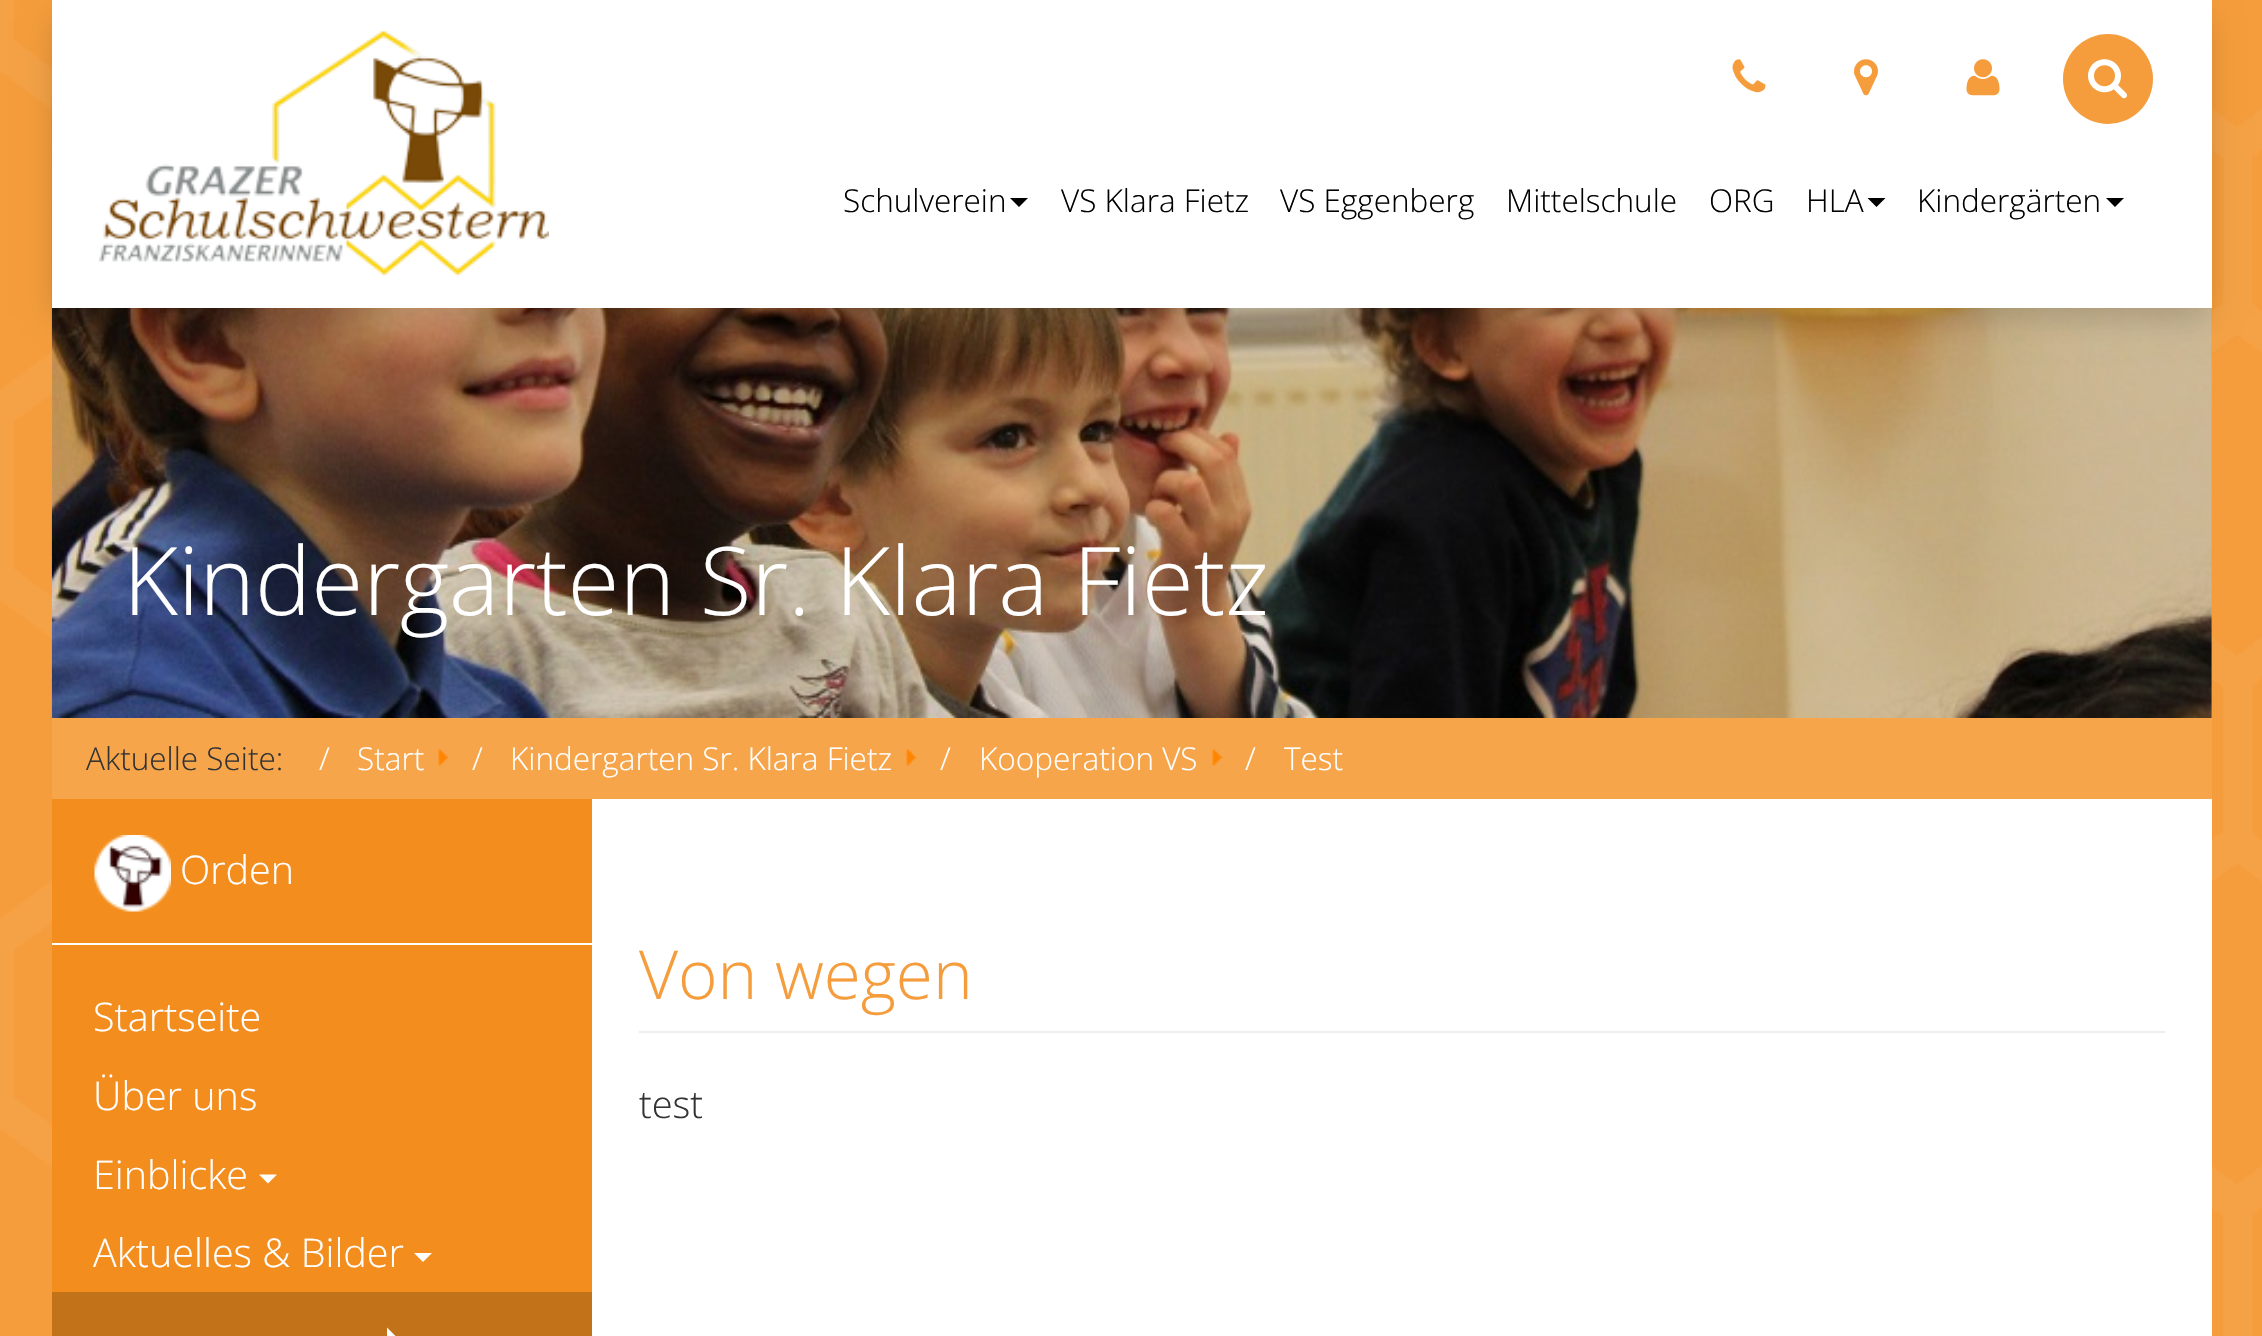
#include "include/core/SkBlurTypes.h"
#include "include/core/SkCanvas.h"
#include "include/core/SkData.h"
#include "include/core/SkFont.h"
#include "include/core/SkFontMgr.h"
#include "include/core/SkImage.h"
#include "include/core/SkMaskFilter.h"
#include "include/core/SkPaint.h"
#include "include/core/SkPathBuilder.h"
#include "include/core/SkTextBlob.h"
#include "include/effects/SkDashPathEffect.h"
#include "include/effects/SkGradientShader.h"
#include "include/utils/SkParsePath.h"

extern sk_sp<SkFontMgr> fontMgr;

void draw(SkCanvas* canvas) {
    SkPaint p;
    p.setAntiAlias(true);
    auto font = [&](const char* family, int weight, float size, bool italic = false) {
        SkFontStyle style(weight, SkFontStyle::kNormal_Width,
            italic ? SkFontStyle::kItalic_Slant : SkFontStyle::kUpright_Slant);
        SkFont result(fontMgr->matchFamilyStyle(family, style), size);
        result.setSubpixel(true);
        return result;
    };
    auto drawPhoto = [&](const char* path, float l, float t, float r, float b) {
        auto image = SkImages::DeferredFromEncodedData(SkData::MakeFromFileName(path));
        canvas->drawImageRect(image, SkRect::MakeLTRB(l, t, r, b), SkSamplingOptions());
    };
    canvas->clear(0xFFF59D3C);
    drawPhoto("media/1.png", 0, 0, 2262, 1336);
    p.setColor(0xFFFFFFFF);
    canvas->drawRect(SkRect::MakeLTRB(52, 799, 2212, 1336), p);
    p.setColor(0xFFF59D3C);
    canvas->drawRect(SkRect::MakeLTRB(2211, 308, 2212, 679), p);
    drawPhoto("media/7.png", 2211, 367, 2212, 688);
    drawPhoto("media/8.png", 51, 0, 2212, 718);
    p.setColor(0x2E000000);
    p.setMaskFilter(SkMaskFilter::MakeBlur(kNormal_SkBlurStyle, 16));
    canvas->drawRect(SkRect::MakeLTRB(56, 18, 2207, 317), p);
    p.setMaskFilter(nullptr);
    p.setColor(0xFFFFFFFF);
    canvas->drawRect(SkRect::MakeLTRB(52, 0, 2212, 308), p);
    drawPhoto("media/2.png", 99, 31, 549, 277);
    drawPhoto("media/3.png", 1732, 59, 1766, 93);
    drawPhoto("media/4.png", 1854, 59, 1878, 96);
    drawPhoto("media/5.png", 1966, 59, 2000, 96);
    p.setColor(0xFFF59D3C);
    canvas->drawCircle(2108, 79, 45, p);
    drawPhoto("media/6.png", 2088, 59, 2127, 99);
    auto font1 = font("Open Sans", 300, 31.5f);
    p.setColor(0xFF000000);
    canvas->drawString("Schulverein", 843, 212, font1, p);
    canvas->drawPath(SkPathBuilder().moveTo(1010, 198).lineTo(1028, 198).lineTo(1019, 207).close().detach(), p);
    {
        const struct { const char* s; float x, y; } items[] = {
            {"VS Klara Fietz", 1061, 212},
            {"VS Eggenberg", 1280, 212},
            {"Mittelschule", 1506, 212},
            {"ORG", 1709, 212},
            {"HLA", 1806, 212},
        };
        for (auto [s, x, y] : items) {
            canvas->drawString(s, x, y, font1, p);
        }
    }
    canvas->drawPath(SkPathBuilder().moveTo(1867.5f, 198).lineTo(1885.5f, 198).lineTo(1876.5f, 207).close().detach(), p);
    canvas->drawString("Kindergärten", 1917, 212, font1, p);
    canvas->drawPath(SkPathBuilder().moveTo(2106, 198).lineTo(2124, 198).lineTo(2115, 207).close().detach(), p);
    auto font2 = font("Open Sans", 300, 94.5f);
    p.setColor(0xFFFFFFFF);
    canvas->drawString("Kindergarten Sr. Klara Fietz", 123, 615, font2, p);
    p.setColor(0xFFF6A54B);
    canvas->drawRect(SkRect::MakeLTRB(52, 718, 2212, 799), p);
    p.setColor(0xFF333333);
    canvas->drawString("Aktuelle Seite:", 86, 770, font1, p);
    p.setColor(0xFFFFFFFF);
    canvas->drawString("/", 319, 770, font1, p);
    canvas->drawString("Start", 357, 770, font1, p);
    drawPhoto("media/9.png", 438, 749, 449, 766);
    canvas->drawString("/", 472, 770, font1, p);
    canvas->drawString("Kindergarten Sr. Klara Fietz", 510, 770, font1, p);
    drawPhoto("media/10.png", 906, 749, 917, 766);
    canvas->drawString("/", 940, 770, font1, p);
    canvas->drawString("Kooperation VS", 979, 770, font1, p);
    drawPhoto("media/9.png", 1212, 749, 1223, 766);
    canvas->drawString("/", 1245, 770, font1, p);
    canvas->drawString("Test", 1284, 770, font1, p);
    p.setColor(0xFFF38E1E);
    canvas->drawRect(SkRect::MakeLTRB(52, 799, 592, 943), p);
    drawPhoto("media/11.png", 94, 835, 171, 912);
    auto font3 = font("Open Sans", 300, 39.5f);
    p.setColor(0xFFFFFFFF);
    canvas->drawString("Orden", 180, 884, font3, p);
    p.setColor(0xFFF38E1E);
    canvas->drawRect(SkRect::MakeLTRB(52, 945, 592, 1292), p);
    p.setColor(0xFFFFFFFF);
    {
        const struct { const char* s; float x, y; } items[] = {
            {"Startseite", 93, 1031},
            {"Über uns", 93, 1110},
            {"Einblicke", 93, 1189},
        };
        for (auto [s, x, y] : items) {
            canvas->drawString(s, x, y, font3, p);
        }
    }
    canvas->drawPath(SkPathBuilder().moveTo(259, 1174.5f).lineTo(277, 1174.5f).lineTo(268, 1183.5f).close().detach(), p);
    canvas->drawString("Aktuelles & Bilder", 93, 1267, font3, p);
    canvas->drawPath(SkPathBuilder().moveTo(414, 1253).lineTo(432, 1253).lineTo(423, 1262).close().detach(), p);
    p.setColor(0xFFC27218);
    canvas->drawRect(SkRect::MakeLTRB(52, 1292, 592, 1336), p);
    p.setColor(0xFFFFFFFF);
    canvas->drawPath(SkPathBuilder().moveTo(387, 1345.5f).lineTo(387, 1327.5f).lineTo(396, 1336.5f).close().detach(), p);
    p.setColor(0xFFEEEEEE);
    canvas->drawRect(SkRect::MakeLTRB(639, 1031, 2165, 1033), p);
    auto font4 = font("Open Sans", 300, 67.5f);
    p.setColor(0xFFF59D3C);
    canvas->drawString("Von wegen", 639, 999, font4, p);
    auto font5 = font("Open Sans", 300, 38);
    p.setColor(0xFF333333);
    canvas->drawString("test", 639, 1118, font5, p);
}
